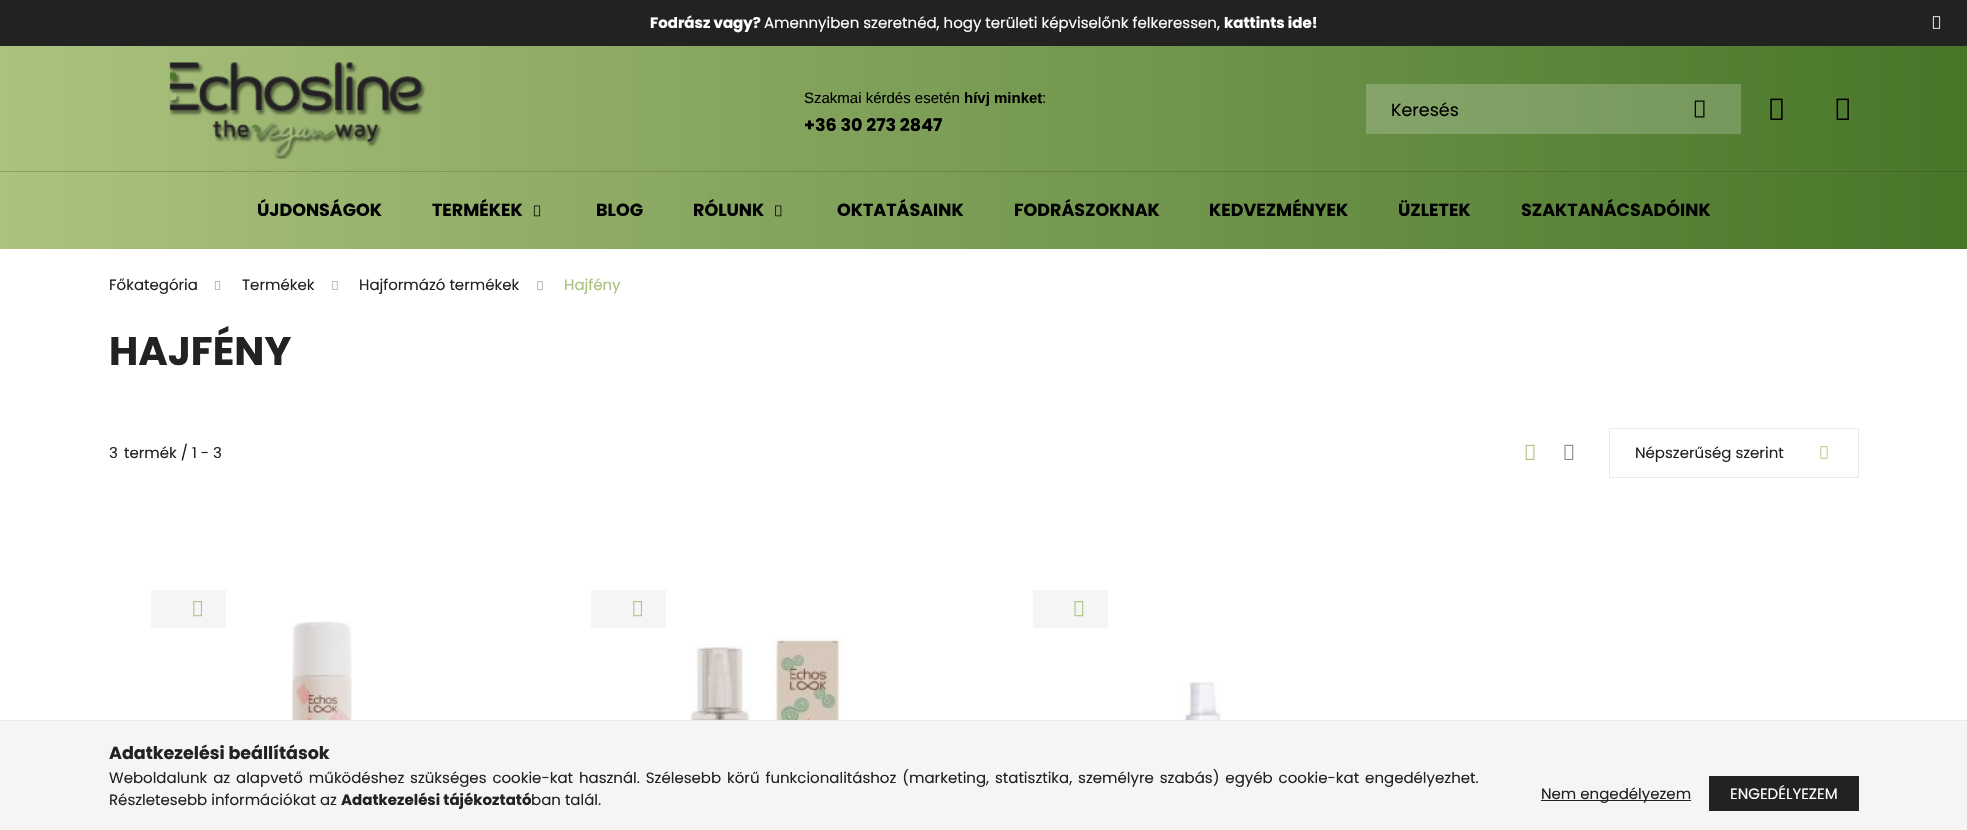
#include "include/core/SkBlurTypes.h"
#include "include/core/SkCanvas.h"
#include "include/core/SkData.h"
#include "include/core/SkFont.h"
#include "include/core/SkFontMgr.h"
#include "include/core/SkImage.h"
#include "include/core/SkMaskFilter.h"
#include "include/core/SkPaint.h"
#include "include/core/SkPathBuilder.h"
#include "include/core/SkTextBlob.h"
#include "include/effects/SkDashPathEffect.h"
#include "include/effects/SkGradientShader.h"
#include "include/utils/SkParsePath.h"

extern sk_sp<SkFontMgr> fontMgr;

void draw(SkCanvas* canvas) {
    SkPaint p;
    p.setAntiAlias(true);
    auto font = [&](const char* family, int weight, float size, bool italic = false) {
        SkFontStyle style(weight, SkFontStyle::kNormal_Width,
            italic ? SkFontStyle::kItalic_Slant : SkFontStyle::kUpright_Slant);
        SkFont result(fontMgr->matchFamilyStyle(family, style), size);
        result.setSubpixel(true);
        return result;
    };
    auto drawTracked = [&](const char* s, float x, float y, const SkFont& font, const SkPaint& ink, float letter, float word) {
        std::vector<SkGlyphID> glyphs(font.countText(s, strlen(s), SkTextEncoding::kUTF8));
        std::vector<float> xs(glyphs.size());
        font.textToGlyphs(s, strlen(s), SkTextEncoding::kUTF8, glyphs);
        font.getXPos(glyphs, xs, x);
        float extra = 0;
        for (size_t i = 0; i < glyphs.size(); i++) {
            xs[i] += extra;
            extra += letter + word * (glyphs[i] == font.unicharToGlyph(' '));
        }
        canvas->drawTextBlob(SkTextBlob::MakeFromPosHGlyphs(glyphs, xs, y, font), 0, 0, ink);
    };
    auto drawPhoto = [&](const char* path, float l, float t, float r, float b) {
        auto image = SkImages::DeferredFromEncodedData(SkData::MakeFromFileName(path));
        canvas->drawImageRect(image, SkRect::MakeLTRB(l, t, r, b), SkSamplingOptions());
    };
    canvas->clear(0xFFFFFFFF);
    p.setColor(0xFF222222);
    canvas->drawRect(SkRect::MakeLTRB(0, 0, 1967, 46), p);
    auto font1 = font("Poppins", 700, 15);
    p.setColor(0xFFFFFFFF);
    canvas->drawString("Fodrász vagy?", 650, 28, font1, p);
    auto font2 = font("Poppins", 400, 15);
    canvas->drawString("Amennyiben szeretnéd, hogy területi képviselőnk felkeressen,", 764, 28, font2, p);
    canvas->drawString("kattints ide!", 1224, 28, font1, p);
    drawPhoto("media/1.png", 1932, 16, 1941, 29);
    {
        const SkColor colors[] = {0xFFABC27F, 0xFF487629};
        const float stops[] = {0, 1};
        const SkPoint ends[] = {{0, 109}, {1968, 109}};
        p.setShader(SkGradientShader::MakeLinear(ends, colors, stops, 2, SkTileMode::kClamp));
        p.setAlpha(255);
    }
    canvas->drawRect(SkRect::MakeLTRB(0, 46, 1967, 171), p);
    {
        const SkColor colors[] = {0xFFBCCE99, 0xFF6D9154};
        const float stops[] = {0, 1};
        const SkPoint ends[] = {{0, 109}, {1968, 109}};
        p.setShader(SkGradientShader::MakeLinear(ends, colors, stops, 2, SkTileMode::kClamp));
        p.setAlpha(255);
    }
    canvas->drawRect(SkRect::MakeLTRB(1366, 84, 1741, 134), p);
    drawPhoto("media/2.png", 169, 62, 426, 159);
    auto font3 = font("Liberation Sans", 400, 15);
    p.setShader(nullptr);
    p.setColor(0xFF000000);
    canvas->drawString("Szakmai kérdés esetén", 804, 103, font3, p);
    auto font4 = font("Liberation Sans", 700, 15);
    canvas->drawString("hívj minket", 964, 103, font4, p);
    canvas->drawString(":", 1042, 103, font3, p);
    auto font5 = font("Poppins", 700, 17.5f);
    canvas->drawString("+36 30 273 2847", 804, 131, font5, p);
    auto font6 = font("Poppins", 400, 17.5f);
    canvas->drawString("Keresés", 1391, 116, font6, p);
    drawPhoto("media/3.png", 1694, 100, 1705, 118);
    drawPhoto("media/4.png", 1770, 98, 1783, 120);
    drawPhoto("media/5.png", 1836, 98, 1849, 120);
    {
        const SkColor colors[] = {0xFFABC27F, 0xFF487629};
        const float stops[] = {0, 1};
        const SkPoint ends[] = {{0, 211}, {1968, 211}};
        p.setShader(SkGradientShader::MakeLinear(ends, colors, stops, 2, SkTileMode::kClamp));
        p.setAlpha(255);
    }
    canvas->drawRect(SkRect::MakeLTRB(0, 172, 1967, 249), p);
    {
        const SkColor colors[] = {0xFF90A26C, 0xFF406528};
        const float stops[] = {0, 1};
        const SkPoint ends[] = {{0, 211}, {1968, 211}};
        p.setShader(SkGradientShader::MakeLinear(ends, colors, stops, 2, SkTileMode::kClamp));
        p.setAlpha(255);
    }
    canvas->drawRect(SkRect::MakeLTRB(0, 171, 1967, 172), p);
    p.setShader(nullptr);
    p.setColor(0xFF000000);
    canvas->drawString("ÚJDONSÁGOK", 257, 216, font5, p);
    canvas->drawString("TERMÉKEK", 432, 216, font5, p);
    drawPhoto("media/6.png", 533, 205, 541, 217);
    canvas->drawString("BLOG", 596, 216, font5, p);
    canvas->drawString("RÓLUNK", 693, 216, font5, p);
    drawPhoto("media/7.png", 775, 205, 782, 217);
    {
        const struct { const char* s; float x, y; } items[] = {
            {"OKTATÁSAINK", 837, 216},
            {"FODRÁSZOKNAK", 1014, 216},
            {"KEDVEZMÉNYEK", 1209, 216},
            {"ÜZLETEK", 1398, 216},
            {"SZAKTANÁCSADÓINK", 1521, 216},
        };
        for (auto [s, x, y] : items) {
            canvas->drawString(s, x, y, font5, p);
        }
    }
    p.setColor(0xFF222222);
    canvas->drawString("Főkategória", 109, 290, font2, p);
    drawPhoto("media/8.png", 214, 281, 221, 290);
    canvas->drawString("Termékek", 242, 290, font2, p);
    drawPhoto("media/9.png", 332, 281, 338, 290);
    canvas->drawString("Hajformázó termékek", 359, 290, font2, p);
    drawPhoto("media/9.png", 537, 281, 543, 290);
    p.setColor(0xFFABC27F);
    canvas->drawString("Hajfény", 564, 290, font2, p);
    auto font7 = font("Poppins", 700, 40);
    p.setColor(0xFF222222);
    canvas->drawString("HAJFÉNY", 109, 365, font7, p);
    canvas->drawString("3", 109, 458, font2, p);
    canvas->drawString("termék / 1 - 3", 124, 458, font2, p);
    drawPhoto("media/10.png", 1525, 444, 1535, 460);
    drawPhoto("media/11.png", 1564, 444, 1574, 460);
    p.setStyle(SkPaint::kStroke_Style);
    p.setStrokeWidth(1);
    p.setColor(0xFFEAEAEA);
    canvas->drawRect(SkRect::MakeLTRB(1609.5f, 428.5f, 1858.5f, 477.5f), p);
    p.setStyle(SkPaint::kFill_Style);
    p.setColor(0xFF222222);
    canvas->drawString("Népszerűség szerint", 1635, 458, font2, p);
    drawPhoto("media/12.png", 1820, 446, 1828, 459);
    p.setColor(0xFFF5F5F5);
    canvas->drawRect(SkRect::MakeLTRB(151, 590, 226, 628), p);
    drawPhoto("media/13.png", 193, 601, 202, 617);
    drawPhoto("media/14.png", 291, 621, 352, 720);
    canvas->drawRect(SkRect::MakeLTRB(591, 590, 666, 628), p);
    drawPhoto("media/13.png", 633, 601, 642, 617);
    drawPhoto("media/15.png", 690, 635, 842, 720);
    canvas->drawRect(SkRect::MakeLTRB(1033, 590, 1108, 628), p);
    drawPhoto("media/16.png", 1074, 601, 1084, 617);
    drawPhoto("media/17.png", 1172, 682, 1242, 720);
    canvas->drawRect(SkRect::MakeLTRB(0, 721, 1967, 830), p);
    p.setColor(0xFFEAEAEA);
    canvas->drawRect(SkRect::MakeLTRB(0, 720, 1967, 721), p);
    p.setColor(0xFF222222);
    canvas->drawString("Adatkezelési beállítások", 109, 759, font5, p);
    drawTracked("Weboldalunk az alapvető működéshez szükséges cookie-kat használ. Szélesebb körű funkcionalitáshoz (marketing, statisztika, személyre szabás) egyéb cookie-kat engedélyezhet.", 109, 783, font2, p, 0, 1.9f);
    canvas->drawString("Részletesebb információkat az", 109, 805, font2, p);
    canvas->drawString("Adatkezelési tájékoztató", 341, 805, font1, p);
    canvas->drawString("ban talál.", 531, 805, font2, p);
    canvas->drawRect(SkRect::MakeLTRB(1541, 800, 1691, 801), p);
    canvas->drawString("Nem engedélyezem", 1541, 799, font2, p);
    {
        const SkColor colors[] = {0xFFABC27F, 0xFF487629, 0xFF222222, 0xFF222222};
        const float stops[] = {0, 0.33f, 0.67f, 1};
        const SkPoint ends[] = {{1409, 794}, {1859, 794}};
        p.setShader(SkGradientShader::MakeLinear(ends, colors, stops, 4, SkTileMode::kClamp));
        p.setAlpha(255);
    }
    canvas->drawRect(SkRect::MakeLTRB(1709, 776, 1859, 811), p);
    p.setShader(nullptr);
    p.setColor(0xFFFFFFFF);
    canvas->drawString("ENGEDÉLYEZEM", 1730, 799, font2, p);
}
